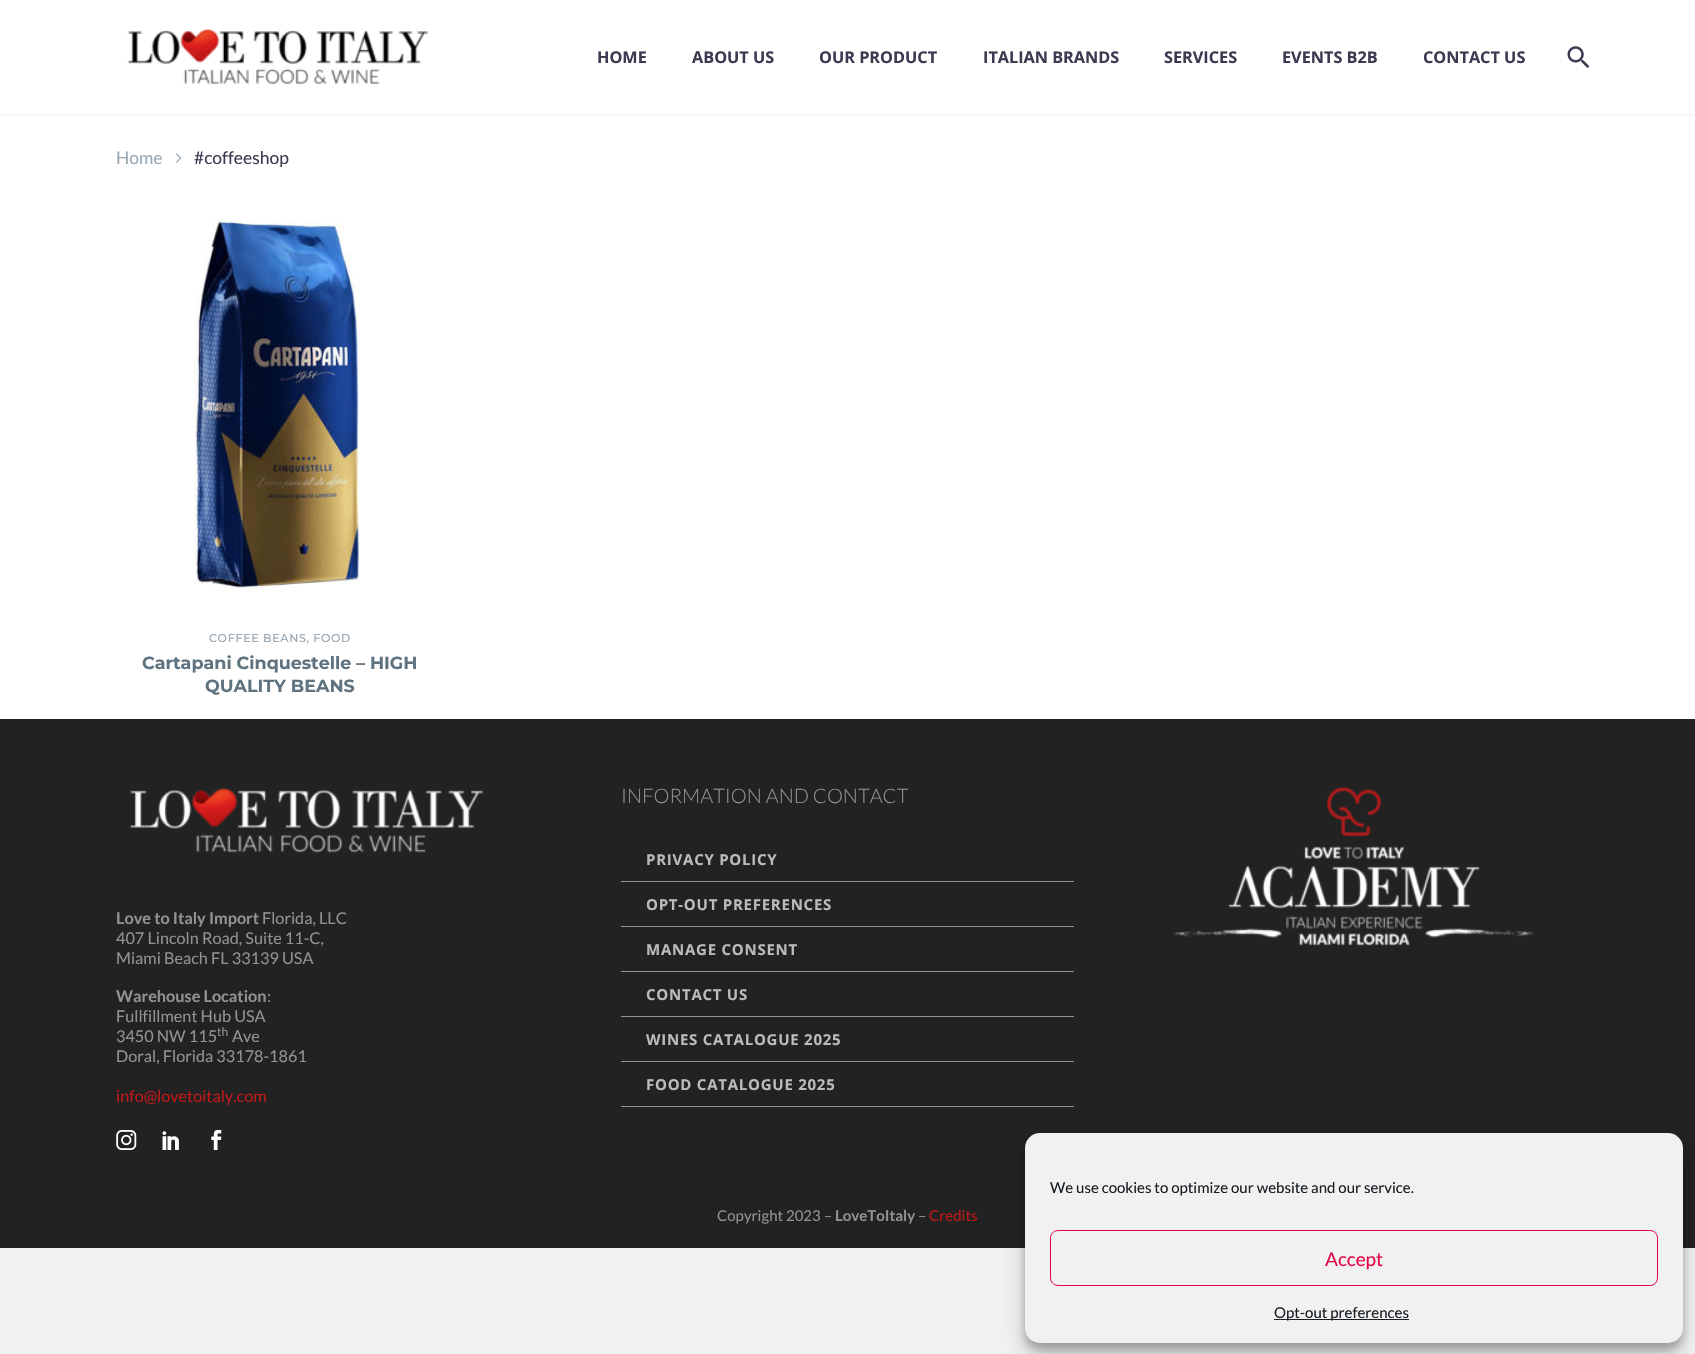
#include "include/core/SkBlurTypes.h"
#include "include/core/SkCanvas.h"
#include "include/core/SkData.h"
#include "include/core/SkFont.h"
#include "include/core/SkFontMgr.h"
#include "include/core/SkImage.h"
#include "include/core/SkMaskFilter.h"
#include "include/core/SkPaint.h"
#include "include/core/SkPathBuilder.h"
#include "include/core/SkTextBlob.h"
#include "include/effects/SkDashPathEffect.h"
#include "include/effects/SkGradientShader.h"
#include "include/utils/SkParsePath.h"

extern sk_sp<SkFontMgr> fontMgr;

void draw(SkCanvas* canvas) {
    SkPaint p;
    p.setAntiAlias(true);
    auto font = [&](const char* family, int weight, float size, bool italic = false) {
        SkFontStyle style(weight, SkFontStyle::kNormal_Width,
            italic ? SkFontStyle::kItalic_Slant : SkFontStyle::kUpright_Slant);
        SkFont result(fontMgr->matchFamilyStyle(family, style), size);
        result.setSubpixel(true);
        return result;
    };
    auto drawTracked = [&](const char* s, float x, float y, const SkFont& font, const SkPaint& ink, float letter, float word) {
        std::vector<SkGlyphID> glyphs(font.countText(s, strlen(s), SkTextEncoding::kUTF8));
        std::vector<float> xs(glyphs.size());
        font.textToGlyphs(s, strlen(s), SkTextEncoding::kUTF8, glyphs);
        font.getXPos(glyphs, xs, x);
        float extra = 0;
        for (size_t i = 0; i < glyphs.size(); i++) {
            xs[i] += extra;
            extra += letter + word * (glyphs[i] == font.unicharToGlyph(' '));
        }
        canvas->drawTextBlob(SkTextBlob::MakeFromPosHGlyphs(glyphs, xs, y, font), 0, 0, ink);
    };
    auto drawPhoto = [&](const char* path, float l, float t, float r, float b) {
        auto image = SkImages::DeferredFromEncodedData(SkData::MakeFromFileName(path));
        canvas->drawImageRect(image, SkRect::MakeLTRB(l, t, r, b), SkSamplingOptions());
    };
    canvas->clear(0xFFF0F3F2);
    p.setColor(0xFFFFFFFF);
    canvas->drawRect(SkRect::MakeLTRB(0, 114, 1695, 719), p);
    p.setColor(0x33384554);
    p.setMaskFilter(SkMaskFilter::MakeBlur(kNormal_SkBlurStyle, 1));
    canvas->drawRect(SkRect::MakeLTRB(0, 0, 1695, 114), p);
    p.setMaskFilter(nullptr);
    p.setColor(0xFFFFFFFF);
    canvas->drawRect(SkRect::MakeLTRB(0, 0, 1695, 114), p);
    drawPhoto("media/1.png", 127, 28, 429, 84);
    auto font1 = font("Open Sans", 700, 16.25f);
    p.setColor(0xFF3C3950);
    {
        const struct { const char* s; float x, y; } items[] = {
            {"HOME", 597, 63},
            {"ABOUT US", 692, 63},
            {"OUR PRODUCT", 819, 63},
            {"ITALIAN BRANDS", 983, 63},
            {"SERVICES", 1164, 63},
            {"EVENTS B2B", 1282, 63},
            {"CONTACT US", 1423, 63},
        };
        for (auto [s, x, y] : items) {
            canvas->drawString(s, x, y, font1, p);
        }
    }
    drawPhoto("media/2.png", 1567, 46, 1590, 68);
    auto font2 = font("Lato", 400, 17.5f);
    p.setColor(0xFF99A9B5);
    canvas->drawString("Home", 116, 164, font2, p);
    drawPhoto("media/3.png", 176, 153, 182, 163);
    p.setColor(0xFF3C3950);
    canvas->drawString("#coffeeshop", 194, 164, font2, p);
    drawPhoto("media/4.png", 194, 219, 360, 592);
    auto font3 = font("Montserrat", 500, 11.25f);
    p.setColor(0xFF99A9B5);
    drawTracked("COFFEE BEANS, FOOD", 209, 642, font3, p, 0.6f, 0);
    auto font4 = font("Montserrat", 700, 17.5f);
    p.setColor(0xFF5F727F);
    canvas->drawString("Cartapani Cinquestelle – HIGH", 142, 669, font4, p);
    canvas->drawString("QUALITY BEANS", 205, 692, font4, p);
    p.setColor(0xFF222222);
    canvas->drawRect(SkRect::MakeLTRB(0, 719, 1695, 1248), p);
    drawPhoto("media/5.png", 130, 787, 484, 853);
    auto font5 = font("Lato", 700, 16.25f);
    p.setColor(0xFF929292);
    canvas->drawString("Love to Italy Import", 116, 924, font5, p);
    auto font6 = font("Lato", 400, 16.25f);
    {
        const struct { const char* s; float x, y; } items[] = {
            {"Florida, LLC", 262, 924},
            {"407 Lincoln Road, Suite 11-C,", 116, 944},
            {"Miami Beach FL 33139 USA", 116, 964},
        };
        for (auto [s, x, y] : items) {
            canvas->drawString(s, x, y, font6, p);
        }
    }
    canvas->drawString("Warehouse Location", 116, 1002, font5, p);
    {
        const struct { const char* s; float x, y; } items[] = {
            {":", 267, 1002},
            {"Fullfillment Hub USA", 116, 1022},
            {"3450 NW 115", 116, 1042},
        };
        for (auto [s, x, y] : items) {
            canvas->drawString(s, x, y, font6, p);
        }
    }
    auto font7 = font("Lato", 400, 12);
    canvas->drawString("th", 217, 1036, font7, p);
    canvas->drawString("Ave", 232, 1042, font6, p);
    canvas->drawString("Doral, Florida 33178-1861", 116, 1062, font6, p);
    p.setColor(0xFFC01818);
    canvas->drawString("info@lovetoitaly.com", 116, 1102, font6, p);
    drawPhoto("media/6.png", 116, 1130, 137, 1150);
    drawPhoto("media/7.png", 162, 1131, 179, 1150);
    drawPhoto("media/8.png", 211, 1130, 222, 1150);
    auto font8 = font("Lato", 300, 20);
    p.setColor(0xFF929292);
    canvas->drawString("INFORMATION AND CONTACT", 621, 803, font8, p);
    canvas->drawRect(SkRect::MakeLTRB(621, 881, 1074, 882), p);
    auto font9 = font("Open Sans", 700, 15);
    p.setColor(0xFFBBBBBB);
    drawTracked("PRIVACY POLICY", 646, 865, font9, p, 0.75f, 0);
    p.setColor(0xFF929292);
    canvas->drawRect(SkRect::MakeLTRB(621, 926, 1074, 927), p);
    p.setColor(0xFFBBBBBB);
    drawTracked("OPT-OUT PREFERENCES", 646, 910, font9, p, 0.75f, 0);
    p.setColor(0xFF929292);
    canvas->drawRect(SkRect::MakeLTRB(621, 971, 1074, 972), p);
    p.setColor(0xFFBBBBBB);
    drawTracked("MANAGE CONSENT", 646, 955, font9, p, 0.75f, 0);
    p.setColor(0xFF929292);
    canvas->drawRect(SkRect::MakeLTRB(621, 1016, 1074, 1017), p);
    p.setColor(0xFFBBBBBB);
    drawTracked("CONTACT US", 646, 1000, font9, p, 0.75f, 0);
    p.setColor(0xFF929292);
    canvas->drawRect(SkRect::MakeLTRB(621, 1061, 1074, 1062), p);
    p.setColor(0xFFBBBBBB);
    drawTracked("WINES CATALOGUE 2025", 646, 1045, font9, p, 0.75f, 0);
    p.setColor(0xFF929292);
    canvas->drawRect(SkRect::MakeLTRB(621, 1106, 1074, 1107), p);
    p.setColor(0xFFBBBBBB);
    drawTracked("FOOD CATALOGUE 2025", 646, 1090, font9, p, 0.75f, 0);
    drawPhoto("media/9.png", 1173, 787, 1534, 946);
    auto font10 = font("Lato", 400, 15);
    p.setColor(0xFF929292);
    canvas->drawString("Copyright 2023 –", 717, 1221, font10, p);
    auto font11 = font("Lato", 700, 15);
    canvas->drawString("LoveToItaly", 835, 1221, font11, p);
    canvas->drawString("–", 918, 1221, font10, p);
    p.setColor(0xFFC01818);
    canvas->drawString("Credits", 929, 1221, font10, p);
    p.setColor(0x3B000000);
    p.setMaskFilter(SkMaskFilter::MakeBlur(kNormal_SkBlurStyle, 4));
    canvas->drawRoundRect(SkRect::MakeLTRB(1025, 1140, 1683, 1350), 15, 15, p);
    p.setMaskFilter(nullptr);
    p.setColor(0x30000000);
    p.setMaskFilter(SkMaskFilter::MakeBlur(kNormal_SkBlurStyle, 12.5f));
    canvas->drawRoundRect(SkRect::MakeLTRB(1025, 1145, 1683, 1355), 15, 15, p);
    p.setMaskFilter(nullptr);
    p.setColor(0xFFF1F1F1);
    canvas->drawRoundRect(SkRect::MakeLTRB(1025, 1133, 1683, 1343), 15, 15, p);
    p.setColor(0xFF191E23);
    canvas->drawString("We use cookies to optimize our website and our service.", 1050, 1193, font10, p);
    p.setStyle(SkPaint::kStroke_Style);
    p.setStrokeWidth(1);
    p.setColor(0xFFE50644);
    canvas->drawRoundRect(SkRect::MakeLTRB(1050.5f, 1230.5f, 1657.5f, 1285.5f), 7.5f, 7.5f, p);
    auto font12 = font("Lato", 400, 19);
    p.setStyle(SkPaint::kFill_Style);
    canvas->drawString("Accept", 1325, 1266, font12, p);
    p.setColor(0xFF191E23);
    canvas->drawRect(SkRect::MakeLTRB(1274, 1319, 1409, 1320), p);
    canvas->drawString("Opt-out preferences", 1274, 1318, font10, p);
}
